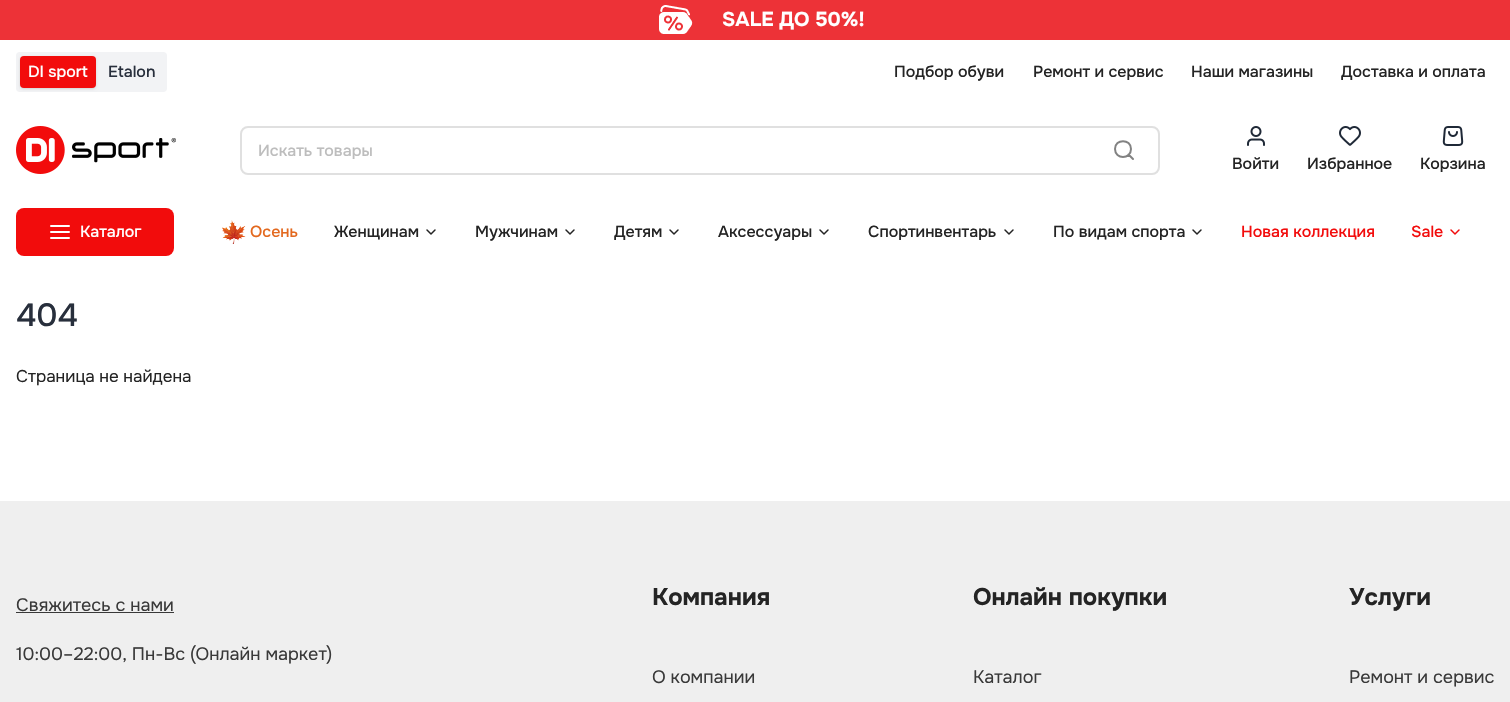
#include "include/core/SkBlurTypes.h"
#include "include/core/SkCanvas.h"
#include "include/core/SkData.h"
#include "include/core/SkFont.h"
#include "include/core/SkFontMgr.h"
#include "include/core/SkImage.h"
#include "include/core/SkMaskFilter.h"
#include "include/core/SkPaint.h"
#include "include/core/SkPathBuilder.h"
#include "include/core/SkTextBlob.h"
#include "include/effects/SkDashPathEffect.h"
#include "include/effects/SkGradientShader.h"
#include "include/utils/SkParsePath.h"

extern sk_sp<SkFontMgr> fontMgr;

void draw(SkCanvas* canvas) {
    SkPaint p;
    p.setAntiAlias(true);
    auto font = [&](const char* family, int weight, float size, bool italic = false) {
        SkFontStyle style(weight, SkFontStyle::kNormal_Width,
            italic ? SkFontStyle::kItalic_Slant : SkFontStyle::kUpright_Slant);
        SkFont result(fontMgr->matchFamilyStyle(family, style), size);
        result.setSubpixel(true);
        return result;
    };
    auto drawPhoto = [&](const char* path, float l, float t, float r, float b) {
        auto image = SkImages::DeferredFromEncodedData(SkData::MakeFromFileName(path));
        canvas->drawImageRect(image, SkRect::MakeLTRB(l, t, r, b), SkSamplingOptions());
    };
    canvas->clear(0xFFFFFFFF);
    p.setColor(0xFFED3237);
    canvas->drawRect(SkRect::MakeLTRB(0, 0, 1510, 40), p);
    drawPhoto("media/1.png", 659, 5, 693, 34);
    auto font1 = font("Onest", 700, 20);
    p.setColor(0xFFFFFFFF);
    canvas->drawString("SALE ДО 50%!", 722, 26, font1, p);
    p.setColor(0xFFF2F3F5);
    canvas->drawRoundRect(SkRect::MakeLTRB(16, 52, 167, 92), 4, 4, p);
    p.setColor(0x1A000000);
    p.setMaskFilter(SkMaskFilter::MakeBlur(kNormal_SkBlurStyle, 1));
    canvas->drawRoundRect(SkRect::MakeLTRB(21, 58, 95, 88), 3, 3, p);
    p.setMaskFilter(nullptr);
    p.setMaskFilter(SkMaskFilter::MakeBlur(kNormal_SkBlurStyle, 1.5f));
    canvas->drawRoundRect(SkRect::MakeLTRB(20, 57, 96, 89), 4, 4, p);
    p.setMaskFilter(nullptr);
    p.setColor(0xFFF20C0C);
    canvas->drawRoundRect(SkRect::MakeLTRB(20, 56, 96, 88), 4, 4, p);
    auto font2 = font("Onest", 500, 16);
    p.setColor(0xFFFFFFFF);
    canvas->drawString("DI sport", 28, 77, font2, p);
    p.setColor(0xFF282F3C);
    canvas->drawString("Etalon", 108, 77, font2, p);
    p.setColor(0xFF242424);
    {
        const struct { const char* s; float x, y; } items[] = {
            {"Подбор обуви", 894, 77},
            {"Ремонт и сервис", 1033, 77},
            {"Наши магазины", 1191, 77},
            {"Доставка и оплата", 1341, 77},
        };
        for (auto [s, x, y] : items) {
            canvas->drawString(s, x, y, font2, p);
        }
    }
    drawPhoto("media/2.png", 16, 126, 176, 174);
    p.setStyle(SkPaint::kStroke_Style);
    p.setStrokeWidth(2);
    p.setColor(0xFFE0E0E0);
    canvas->drawRoundRect(SkRect::MakeLTRB(241, 127, 1159, 174), 7, 7, p);
    p.setStyle(SkPaint::kFill_Style);
    p.setColor(0xFFBDBDBD);
    canvas->drawString("Искать товары", 258, 156, font2, p);
    p.setStyle(SkPaint::kStroke_Style);
    p.setStrokeCap(SkPaint::kRound_Cap);
    p.setStrokeJoin(SkPaint::kRound_Join);
    p.setColor(0xFF828282);
    canvas->drawPath(SkPathBuilder().moveTo(1133, 159).lineTo(1128.5f, 154.5f).moveTo(1131, 149).cubicTo(1131, 159.5f, 1115, 159.5f, 1115, 149).cubicTo(1115, 138.5f, 1131, 138.5f, 1131, 149).close().detach(), p);
    drawPhoto("media/3.png", 1247, 126, 1265, 146);
    p.setStyle(SkPaint::kFill_Style);
    p.setColor(0xFF242424);
    canvas->drawString("Войти", 1232, 169, font2, p);
    drawPhoto("media/4.png", 1339, 126, 1361, 146);
    canvas->drawString("Избранное", 1307, 169, font2, p);
    drawPhoto("media/5.png", 1442, 126, 1464, 146);
    canvas->drawString("Корзина", 1420, 169, font2, p);
    p.setColor(0xFFF20C0C);
    canvas->drawRoundRect(SkRect::MakeLTRB(16, 208, 174, 256), 8, 8, p);
    p.setStyle(SkPaint::kStroke_Style);
    p.setColor(0xFFFFFFFF);
    canvas->drawPath(SkPathBuilder().moveTo(51, 232).lineTo(69, 232).moveTo(51, 226).lineTo(69, 226).moveTo(51, 238).lineTo(69, 238).detach(), p);
    p.setStyle(SkPaint::kFill_Style);
    canvas->drawString("Каталог", 80, 237, font2, p);
    drawPhoto("media/6.png", 222, 220, 246, 244);
    p.setColor(0xFFE3691F);
    canvas->drawString("Осень", 250, 237, font2, p);
    p.setColor(0xFF242424);
    canvas->drawString("Женщинам", 334, 237, font2, p);
    p.setStyle(SkPaint::kStroke_Style);
    p.setStrokeWidth(1.5f);
    canvas->drawPath(SkPathBuilder().moveTo(427, 230).lineTo(431, 234).lineTo(435, 230).detach(), p);
    p.setStyle(SkPaint::kFill_Style);
    canvas->drawString("Мужчинам", 475, 237, font2, p);
    p.setStyle(SkPaint::kStroke_Style);
    canvas->drawPath(SkPathBuilder().moveTo(566, 230).lineTo(570, 234).lineTo(574, 230).detach(), p);
    p.setStyle(SkPaint::kFill_Style);
    canvas->drawString("Детям", 614, 237, font2, p);
    p.setStyle(SkPaint::kStroke_Style);
    canvas->drawPath(SkPathBuilder().moveTo(670, 230).lineTo(674, 234).lineTo(678, 230).detach(), p);
    p.setStyle(SkPaint::kFill_Style);
    canvas->drawString("Аксессуары", 718, 237, font2, p);
    p.setStyle(SkPaint::kStroke_Style);
    canvas->drawPath(SkPathBuilder().moveTo(820, 230).lineTo(824, 234).lineTo(828, 230).detach(), p);
    p.setStyle(SkPaint::kFill_Style);
    canvas->drawString("Спортинвентарь", 868, 237, font2, p);
    p.setStyle(SkPaint::kStroke_Style);
    canvas->drawPath(SkPathBuilder().moveTo(1005, 230).lineTo(1009, 234).lineTo(1013, 230).detach(), p);
    p.setStyle(SkPaint::kFill_Style);
    canvas->drawString("По видам спорта", 1053, 237, font2, p);
    p.setStyle(SkPaint::kStroke_Style);
    canvas->drawPath(SkPathBuilder().moveTo(1193, 230).lineTo(1197, 234).lineTo(1201, 230).detach(), p);
    p.setStyle(SkPaint::kFill_Style);
    p.setColor(0xFFF20C0C);
    canvas->drawString("Новая коллекция", 1241, 237, font2, p);
    canvas->drawString("Sale", 1411, 237, font2, p);
    p.setStyle(SkPaint::kStroke_Style);
    canvas->drawPath(SkPathBuilder().moveTo(1451, 230).lineTo(1455, 234).lineTo(1459, 230).detach(), p);
    auto font3 = font("Onest", 500, 32);
    p.setStyle(SkPaint::kFill_Style);
    p.setColor(0xFF282F3C);
    canvas->drawString("404", 16, 326, font3, p);
    auto font4 = font("Onest", 400, 17);
    p.setColor(0xFF242424);
    canvas->drawString("Страница не найдена", 16, 382, font4, p);
    p.setColor(0xFFEFEFEF);
    canvas->drawRect(SkRect::MakeLTRB(0, 501, 1510, 702), p);
    auto font5 = font("Onest", 400, 18);
    p.setColor(0xFF393939);
    canvas->drawString("Свяжитесь с нами", 16, 611, font5, p);
    canvas->drawRect(SkRect::MakeLTRB(16, 612, 174, 613), p);
    canvas->drawString("10:00–22:00, Пн-Вс (Онлайн маркет)", 16, 660, font5, p);
    auto font6 = font("Onest", 700, 24);
    p.setColor(0xFF242424);
    canvas->drawString("Компания", 652, 605, font6, p);
    p.setColor(0xFF393939);
    canvas->drawString("О компании", 652, 683, font5, p);
    p.setColor(0xFF242424);
    canvas->drawString("Онлайн покупки", 973, 605, font6, p);
    p.setColor(0xFF393939);
    canvas->drawString("Каталог", 973, 683, font5, p);
    p.setColor(0xFF242424);
    canvas->drawString("Услуги", 1349, 605, font6, p);
    p.setColor(0xFF393939);
    canvas->drawString("Ремонт и сервис", 1349, 683, font5, p);
}
